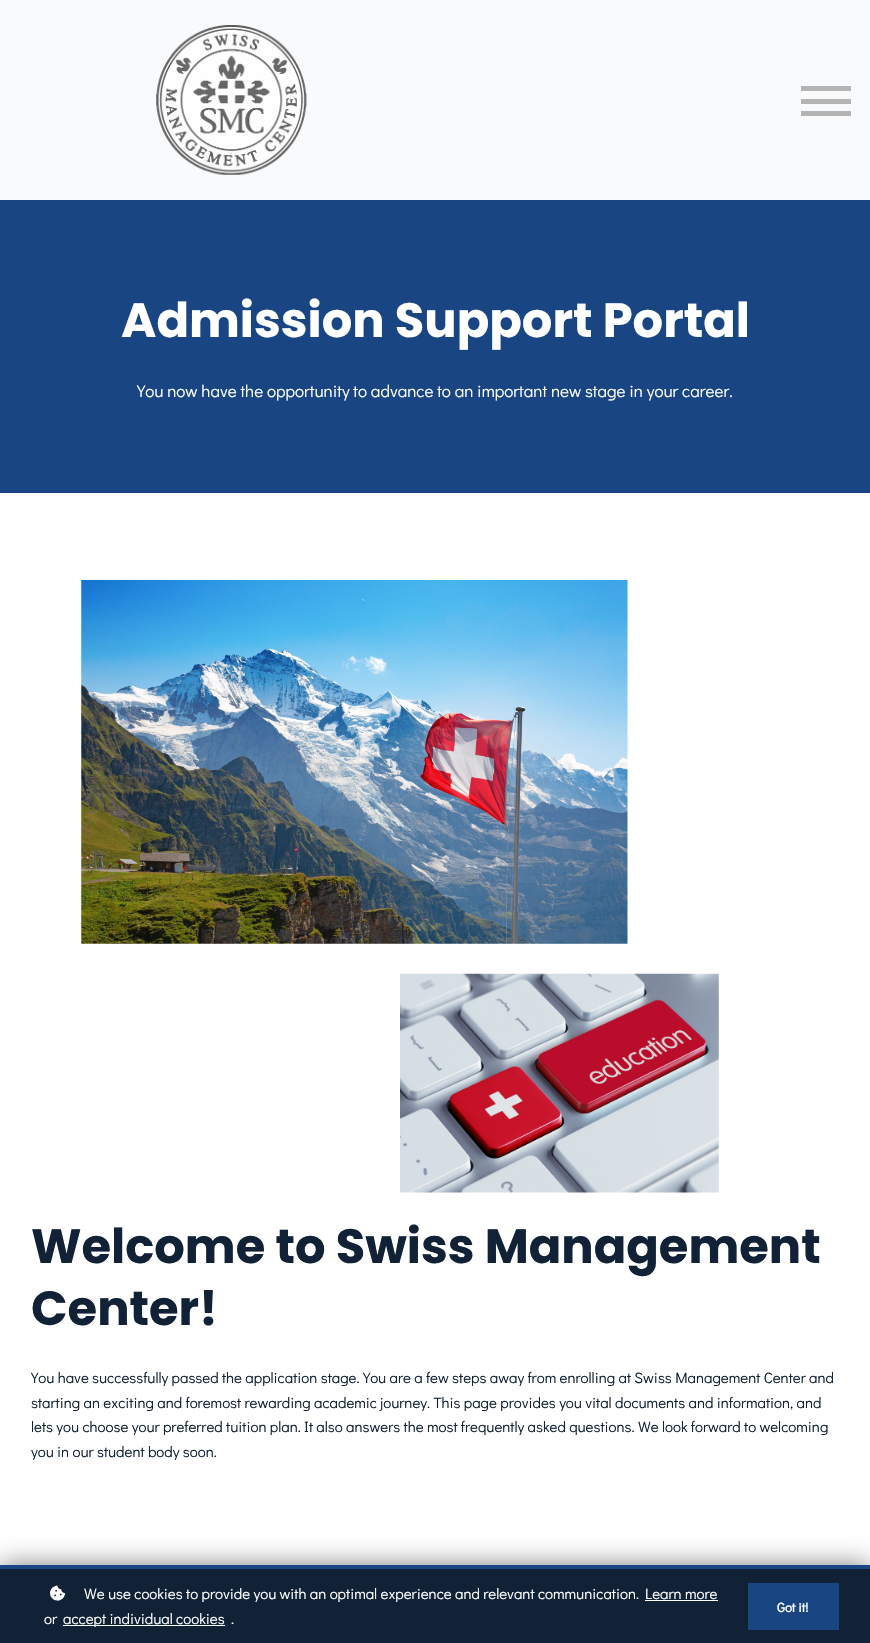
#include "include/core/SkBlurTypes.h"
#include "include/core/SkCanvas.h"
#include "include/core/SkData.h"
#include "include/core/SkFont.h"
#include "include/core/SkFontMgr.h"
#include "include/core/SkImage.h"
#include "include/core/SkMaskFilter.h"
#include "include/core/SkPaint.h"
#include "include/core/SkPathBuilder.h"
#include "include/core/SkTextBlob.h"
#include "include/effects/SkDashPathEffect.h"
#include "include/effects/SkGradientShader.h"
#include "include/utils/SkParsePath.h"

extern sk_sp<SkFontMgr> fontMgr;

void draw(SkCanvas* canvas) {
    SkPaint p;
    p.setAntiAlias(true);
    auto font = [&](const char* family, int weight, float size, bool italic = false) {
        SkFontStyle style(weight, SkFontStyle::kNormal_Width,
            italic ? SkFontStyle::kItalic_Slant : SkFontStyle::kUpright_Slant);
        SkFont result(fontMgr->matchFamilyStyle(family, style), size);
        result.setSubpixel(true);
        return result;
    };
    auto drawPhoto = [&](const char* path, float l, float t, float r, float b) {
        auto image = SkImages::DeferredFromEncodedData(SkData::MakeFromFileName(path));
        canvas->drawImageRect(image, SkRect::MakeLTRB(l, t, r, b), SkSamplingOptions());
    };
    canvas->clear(0xFFFFFFFF);
    p.setColor(0xFFF9FAFC);
    canvas->drawRect(SkRect::MakeLTRB(0, 0, 870, 200), p);
    drawPhoto("media/1.png", 156, 25, 307, 175);
    {
        const struct { float l, t, r, b; SkColor color; } items[] = {
            {801, 111, 851, 116, 0xFFB4B4B4},
            {801, 86, 851, 91, 0xFFB4B4B4},
            {801, 99, 851, 104, 0xFFB4B4B4},
            {0, 200, 870, 493, 0xFF194583},
        };
        for (auto [l, t, r, b, color] : items) {
            p.setColor(color);
            canvas->drawRect(SkRect::MakeLTRB(l, t, r, b), p);
        }
    }
    auto font1 = font("Poppins", 700, 48);
    p.setColor(0xFFFFFFFF);
    canvas->drawString("Admission Support Portal", 121, 337, font1, p);
    auto font2 = font("Didact Gothic", 400, 17);
    canvas->drawString("You now have the opportunity to advance to an important new stage in your career.", 137, 397, font2, p);
    drawPhoto("media/2.png", 81, 580, 628, 944);
    drawPhoto("media/3.png", 400, 973, 719, 1193);
    p.setColor(0xFF112236);
    canvas->drawString("Welcome to Swiss Management", 31, 1263, font1, p);
    canvas->drawString("Center!", 31, 1325, font1, p);
    auto font3 = font("Didact Gothic", 400, 15);
    {
        const struct { const char* s; float x, y; } items[] = {
            {"You have successfully passed the application stage. You are a few steps away from enrolling at Swiss Management Center and", 31, 1383},
            {"starting an exciting and foremost rewarding academic journey. This page provides you vital documents and information, and", 31, 1408},
            {"lets you choose your preferred tuition plan. It also answers the most frequently asked questions. We look forward to welcoming", 31, 1432},
            {"you in our student body soon.", 31, 1457},
        };
        for (auto [s, x, y] : items) {
            canvas->drawString(s, x, y, font3, p);
        }
    }
    p.setColor(0x80000000);
    p.setMaskFilter(SkMaskFilter::MakeBlur(kNormal_SkBlurStyle, 12.5f));
    canvas->drawRect(SkRect::MakeLTRB(0, 1565, 870, 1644), p);
    p.setMaskFilter(nullptr);
    p.setColor(0xFF112236);
    canvas->drawRect(SkRect::MakeLTRB(0, 1569, 870, 1643), p);
    p.setColor(0xFF194583);
    canvas->drawRect(SkRect::MakeLTRB(0, 1565, 870, 1569), p);
    drawPhoto("media/4.png", 50, 1585, 65, 1601);
    p.setColor(0xFFFFFFFF);
    canvas->drawString("We use cookies to provide you with an optimal experience and relevant communication.", 84, 1599, font3, p);
    canvas->drawString("Learn more", 645, 1599, font3, p);
    canvas->drawRect(SkRect::MakeLTRB(645, 1600, 718, 1601), p);
    canvas->drawString("or", 44, 1624, font3, p);
    canvas->drawRect(SkRect::MakeLTRB(63, 1625, 225, 1626), p);
    canvas->drawString("accept individual cookies", 63, 1624, font3, p);
    canvas->drawString(".", 231, 1624, font3, p);
    p.setColor(0xFF194583);
    canvas->drawRect(SkRect::MakeLTRB(748, 1583, 839, 1630), p);
    auto font4 = font("Didact Gothic", 700, 13);
    p.setColor(0xFFFFFFFF);
    canvas->drawString("Got it!", 777, 1612, font4, p);
}
